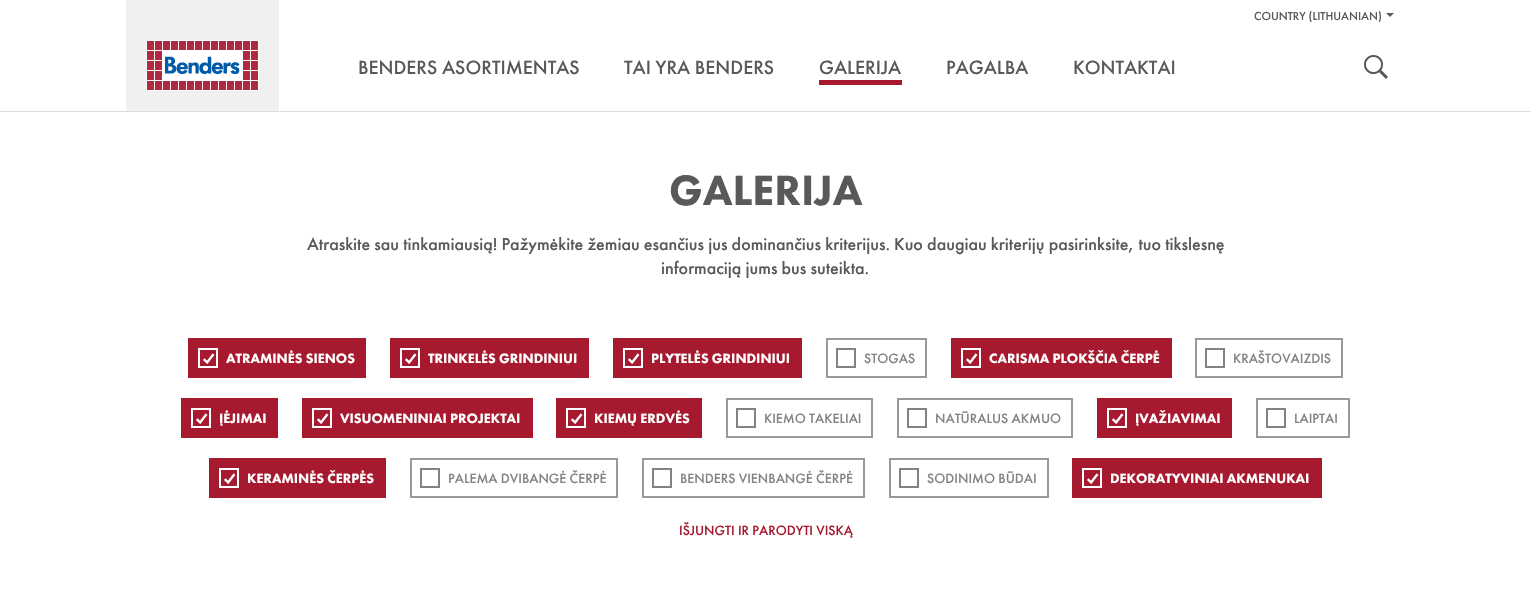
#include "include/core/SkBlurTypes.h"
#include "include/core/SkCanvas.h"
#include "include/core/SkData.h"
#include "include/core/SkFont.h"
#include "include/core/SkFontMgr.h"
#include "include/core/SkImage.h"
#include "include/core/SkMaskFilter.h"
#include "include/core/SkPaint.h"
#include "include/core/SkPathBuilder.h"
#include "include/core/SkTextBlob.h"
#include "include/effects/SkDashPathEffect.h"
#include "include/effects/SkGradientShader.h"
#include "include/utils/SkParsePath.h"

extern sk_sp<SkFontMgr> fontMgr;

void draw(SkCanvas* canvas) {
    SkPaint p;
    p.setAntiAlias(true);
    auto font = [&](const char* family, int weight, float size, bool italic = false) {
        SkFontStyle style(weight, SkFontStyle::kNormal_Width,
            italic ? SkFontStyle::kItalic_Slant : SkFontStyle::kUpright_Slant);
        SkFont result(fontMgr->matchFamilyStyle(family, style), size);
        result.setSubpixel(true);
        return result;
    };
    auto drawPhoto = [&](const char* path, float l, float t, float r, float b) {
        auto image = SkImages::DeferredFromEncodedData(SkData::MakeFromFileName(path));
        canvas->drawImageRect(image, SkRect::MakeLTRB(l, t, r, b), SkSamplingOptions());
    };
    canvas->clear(0xFFFFFFFF);
    p.setColor(0xFFDDDDDD);
    canvas->drawRect(SkRect::MakeLTRB(0, 111, 1531, 112), p);
    p.setColor(0xFFF0F0F0);
    canvas->drawRect(SkRect::MakeLTRB(126, 0, 279, 111), p);
    drawPhoto("media/1.png", 146, 40, 259, 91);
    auto font1 = font("Futura PT", 500, 12);
    p.setColor(0xFF58595B);
    canvas->drawString("COUNTRY (LITHUANIAN)", 1254, 20, font1, p);
    canvas->drawPath(SkPathBuilder().moveTo(1386, 13).lineTo(1394, 13).lineTo(1390, 17).close().detach(), p);
    drawPhoto("media/2.png", 1364, 55, 1388, 79);
    auto font2 = font("Futura PT", 500, 20);
    {
        const struct { const char* s; float x, y; } items[] = {
            {"BENDERS ASORTIMENTAS", 358, 74},
            {"TAI YRA BENDERS", 624, 74},
            {"GALERIJA", 819, 74},
        };
        for (auto [s, x, y] : items) {
            canvas->drawString(s, x, y, font2, p);
        }
    }
    p.setColor(0xFFA6192E);
    canvas->drawRect(SkRect::MakeLTRB(819, 80, 902, 85), p);
    p.setColor(0xFF58595B);
    canvas->drawString("PAGALBA", 946, 74, font2, p);
    canvas->drawString("KONTAKTAI", 1073, 74, font2, p);
    auto font3 = font("Futura PT", 900, 44);
    canvas->drawString("GALERIJA", 669, 205, font3, p);
    auto font4 = font("Futura PT", 500, 18);
    canvas->drawString("Atraskite sau tinkamiausią! Pažymėkite žemiau esančius jus dominančius kriterijus. Kuo daugiau kriterijų pasirinksite, tuo tikslesnę", 307, 250, font4, p);
    canvas->drawString("informaciją jums bus suteikta.", 661, 274, font4, p);
    p.setColor(0xFFA6192E);
    canvas->drawRect(SkRect::MakeLTRB(188, 338, 366, 378), p);
    drawPhoto("media/3.png", 203, 353, 215, 364);
    p.setStyle(SkPaint::kStroke_Style);
    p.setStrokeWidth(2);
    p.setColor(0xFFFFFFFF);
    canvas->drawRect(SkRect::MakeLTRB(199, 349, 217, 367), p);
    auto font5 = font("Futura PT", 900, 14);
    p.setStyle(SkPaint::kFill_Style);
    canvas->drawString("ATRAMINĖS SIENOS", 226, 363, font5, p);
    p.setColor(0xFFA6192E);
    canvas->drawRect(SkRect::MakeLTRB(390, 338, 589, 378), p);
    drawPhoto("media/3.png", 405, 353, 417, 364);
    p.setStyle(SkPaint::kStroke_Style);
    p.setColor(0xFFFFFFFF);
    canvas->drawRect(SkRect::MakeLTRB(401, 349, 419, 367), p);
    p.setStyle(SkPaint::kFill_Style);
    canvas->drawString("TRINKELĖS GRINDINIUI", 428, 363, font5, p);
    p.setColor(0xFFA6192E);
    canvas->drawRect(SkRect::MakeLTRB(613, 338, 802, 378), p);
    drawPhoto("media/3.png", 628, 353, 640, 364);
    p.setStyle(SkPaint::kStroke_Style);
    p.setColor(0xFFFFFFFF);
    canvas->drawRect(SkRect::MakeLTRB(624, 349, 642, 367), p);
    p.setStyle(SkPaint::kFill_Style);
    canvas->drawString("PLYTELĖS GRINDINIUI", 651, 363, font5, p);
    p.setStyle(SkPaint::kStroke_Style);
    p.setColor(0xFF97999B);
    canvas->drawRect(SkRect::MakeLTRB(827, 339, 926, 377), p);
    p.setColor(0xFF808285);
    canvas->drawRect(SkRect::MakeLTRB(837, 349, 855, 367), p);
    auto font6 = font("Futura PT", 500, 14);
    p.setStyle(SkPaint::kFill_Style);
    canvas->drawString("STOGAS", 864, 363, font6, p);
    p.setColor(0xFFA6192E);
    canvas->drawRect(SkRect::MakeLTRB(951, 338, 1172, 378), p);
    drawPhoto("media/3.png", 966, 353, 978, 364);
    p.setStyle(SkPaint::kStroke_Style);
    p.setColor(0xFFFFFFFF);
    canvas->drawRect(SkRect::MakeLTRB(962, 349, 980, 367), p);
    p.setStyle(SkPaint::kFill_Style);
    canvas->drawString("CARISMA PLOKŠČIA ČERPĖ", 989, 363, font5, p);
    p.setStyle(SkPaint::kStroke_Style);
    p.setColor(0xFF97999B);
    canvas->drawRect(SkRect::MakeLTRB(1196, 339, 1342, 377), p);
    p.setColor(0xFF808285);
    canvas->drawRect(SkRect::MakeLTRB(1206, 349, 1224, 367), p);
    p.setStyle(SkPaint::kFill_Style);
    canvas->drawString("KRAŠTOVAIZDIS", 1233, 363, font6, p);
    p.setColor(0xFFA6192E);
    canvas->drawRect(SkRect::MakeLTRB(181, 398, 278, 438), p);
    drawPhoto("media/3.png", 196, 413, 208, 424);
    p.setStyle(SkPaint::kStroke_Style);
    p.setColor(0xFFFFFFFF);
    canvas->drawRect(SkRect::MakeLTRB(192, 409, 210, 427), p);
    p.setStyle(SkPaint::kFill_Style);
    canvas->drawString("ĮĖJIMAI", 219, 423, font5, p);
    p.setColor(0xFFA6192E);
    canvas->drawRect(SkRect::MakeLTRB(302, 398, 533, 438), p);
    drawPhoto("media/3.png", 317, 413, 329, 424);
    p.setStyle(SkPaint::kStroke_Style);
    p.setColor(0xFFFFFFFF);
    canvas->drawRect(SkRect::MakeLTRB(313, 409, 331, 427), p);
    p.setStyle(SkPaint::kFill_Style);
    canvas->drawString("VISUOMENINIAI PROJEKTAI", 340, 423, font5, p);
    p.setColor(0xFFA6192E);
    canvas->drawRect(SkRect::MakeLTRB(556, 398, 702, 438), p);
    drawPhoto("media/3.png", 571, 413, 583, 424);
    p.setStyle(SkPaint::kStroke_Style);
    p.setColor(0xFFFFFFFF);
    canvas->drawRect(SkRect::MakeLTRB(567, 409, 585, 427), p);
    p.setStyle(SkPaint::kFill_Style);
    canvas->drawString("KIEMŲ ERDVĖS", 594, 423, font5, p);
    p.setStyle(SkPaint::kStroke_Style);
    p.setColor(0xFF97999B);
    canvas->drawRect(SkRect::MakeLTRB(727, 399, 872, 437), p);
    p.setColor(0xFF808285);
    canvas->drawRect(SkRect::MakeLTRB(737, 409, 755, 427), p);
    p.setStyle(SkPaint::kFill_Style);
    canvas->drawString("KIEMO TAKELIAI", 764, 423, font6, p);
    p.setStyle(SkPaint::kStroke_Style);
    p.setColor(0xFF97999B);
    canvas->drawRect(SkRect::MakeLTRB(898, 399, 1072, 437), p);
    p.setColor(0xFF808285);
    canvas->drawRect(SkRect::MakeLTRB(908, 409, 926, 427), p);
    p.setStyle(SkPaint::kFill_Style);
    canvas->drawString("NATŪRALUS AKMUO", 935, 423, font6, p);
    p.setColor(0xFFA6192E);
    canvas->drawRect(SkRect::MakeLTRB(1097, 398, 1232, 438), p);
    drawPhoto("media/3.png", 1112, 413, 1124, 424);
    p.setStyle(SkPaint::kStroke_Style);
    p.setColor(0xFFFFFFFF);
    canvas->drawRect(SkRect::MakeLTRB(1108, 409, 1126, 427), p);
    p.setStyle(SkPaint::kFill_Style);
    canvas->drawString("ĮVAŽIAVIMAI", 1135, 423, font5, p);
    p.setStyle(SkPaint::kStroke_Style);
    p.setColor(0xFF97999B);
    canvas->drawRect(SkRect::MakeLTRB(1257, 399, 1349, 437), p);
    p.setColor(0xFF808285);
    canvas->drawRect(SkRect::MakeLTRB(1267, 409, 1285, 427), p);
    p.setStyle(SkPaint::kFill_Style);
    canvas->drawString("LAIPTAI", 1294, 423, font6, p);
    p.setColor(0xFFA6192E);
    canvas->drawRect(SkRect::MakeLTRB(209, 458, 386, 498), p);
    drawPhoto("media/3.png", 224, 473, 236, 484);
    p.setStyle(SkPaint::kStroke_Style);
    p.setColor(0xFFFFFFFF);
    canvas->drawRect(SkRect::MakeLTRB(220, 469, 238, 487), p);
    p.setStyle(SkPaint::kFill_Style);
    canvas->drawString("KERAMINĖS ČERPĖS", 247, 483, font5, p);
    p.setStyle(SkPaint::kStroke_Style);
    p.setColor(0xFF97999B);
    canvas->drawRect(SkRect::MakeLTRB(411, 459, 617, 497), p);
    p.setColor(0xFF808285);
    canvas->drawRect(SkRect::MakeLTRB(421, 469, 439, 487), p);
    p.setStyle(SkPaint::kFill_Style);
    canvas->drawString("PALEMA DVIBANGĖ ČERPĖ", 448, 483, font6, p);
    p.setStyle(SkPaint::kStroke_Style);
    p.setColor(0xFF97999B);
    canvas->drawRect(SkRect::MakeLTRB(643, 459, 864, 497), p);
    p.setColor(0xFF808285);
    canvas->drawRect(SkRect::MakeLTRB(653, 469, 671, 487), p);
    p.setStyle(SkPaint::kFill_Style);
    canvas->drawString("BENDERS VIENBANGĖ ČERPĖ", 680, 483, font6, p);
    p.setStyle(SkPaint::kStroke_Style);
    p.setColor(0xFF97999B);
    canvas->drawRect(SkRect::MakeLTRB(890, 459, 1048, 497), p);
    p.setColor(0xFF808285);
    canvas->drawRect(SkRect::MakeLTRB(900, 469, 918, 487), p);
    p.setStyle(SkPaint::kFill_Style);
    canvas->drawString("SODINIMO BŪDAI", 927, 483, font6, p);
    p.setColor(0xFFA6192E);
    canvas->drawRect(SkRect::MakeLTRB(1072, 458, 1322, 498), p);
    drawPhoto("media/3.png", 1087, 473, 1099, 484);
    p.setStyle(SkPaint::kStroke_Style);
    p.setColor(0xFFFFFFFF);
    canvas->drawRect(SkRect::MakeLTRB(1083, 469, 1101, 487), p);
    p.setStyle(SkPaint::kFill_Style);
    canvas->drawString("DEKORATYVINIAI AKMENUKAI", 1110, 483, font5, p);
    p.setColor(0xFFA6192E);
    canvas->drawString("IŠJUNGTI IR PARODYTI VISKĄ", 679, 535, font6, p);
}
